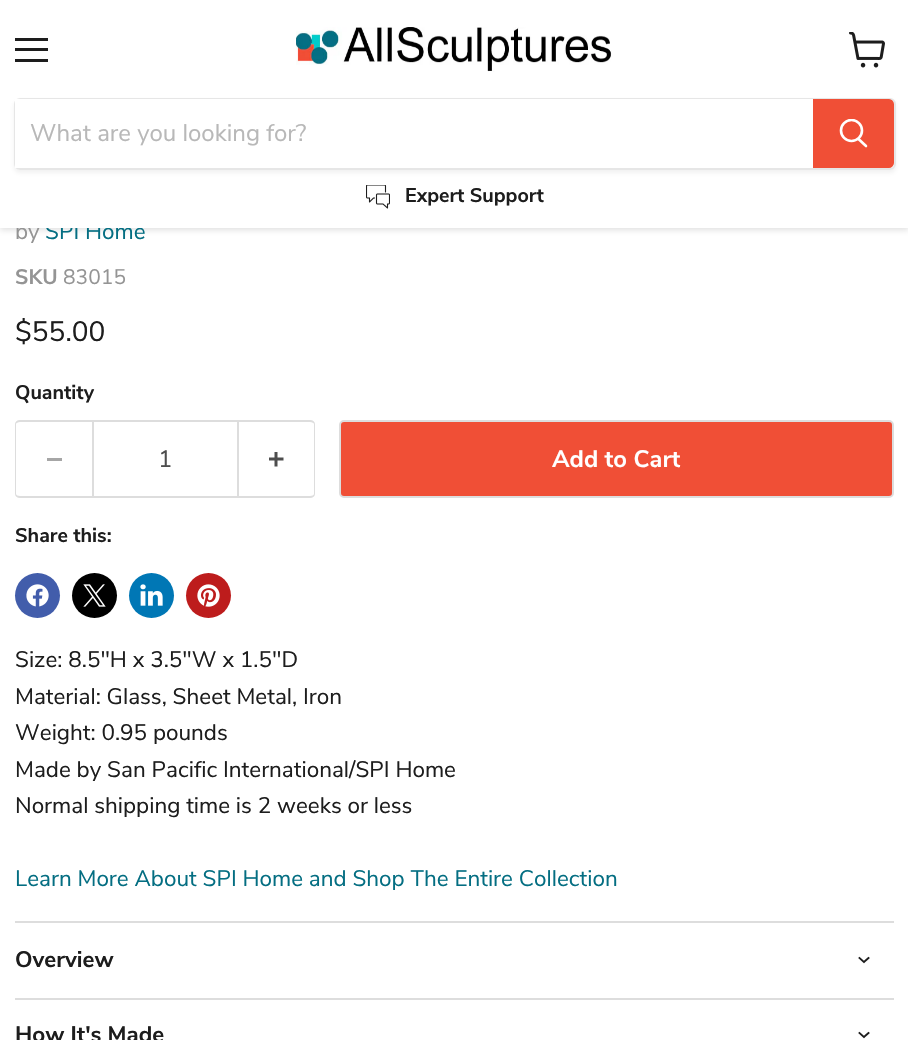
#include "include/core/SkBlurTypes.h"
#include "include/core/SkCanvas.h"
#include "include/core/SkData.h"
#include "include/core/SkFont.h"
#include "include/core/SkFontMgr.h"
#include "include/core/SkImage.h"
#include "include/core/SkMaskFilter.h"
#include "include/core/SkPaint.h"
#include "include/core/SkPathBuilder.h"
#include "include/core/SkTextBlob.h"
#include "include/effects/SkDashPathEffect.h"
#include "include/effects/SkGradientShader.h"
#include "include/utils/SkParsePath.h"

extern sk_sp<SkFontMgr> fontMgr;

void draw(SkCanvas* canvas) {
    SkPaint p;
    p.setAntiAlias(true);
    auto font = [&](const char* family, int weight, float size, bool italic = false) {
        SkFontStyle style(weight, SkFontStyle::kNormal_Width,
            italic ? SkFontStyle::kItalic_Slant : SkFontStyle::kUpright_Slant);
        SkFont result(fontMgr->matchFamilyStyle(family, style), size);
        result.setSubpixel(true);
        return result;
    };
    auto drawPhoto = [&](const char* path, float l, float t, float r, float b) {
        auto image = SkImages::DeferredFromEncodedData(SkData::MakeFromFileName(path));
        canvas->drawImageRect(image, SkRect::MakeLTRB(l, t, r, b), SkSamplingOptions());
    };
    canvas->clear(0xFFFFFFFF);
    p.setColor(0x40808080);
    p.setMaskFilter(SkMaskFilter::MakeBlur(kNormal_SkBlurStyle, 3));
    canvas->drawRect(SkRect::MakeLTRB(0, 2, 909, 230), p);
    p.setMaskFilter(nullptr);
    auto font1 = font("Nunito Sans", 400, 22.5f);
    p.setColor(0xFF949494);
    canvas->drawString("by", 15, 239, font1, p);
    p.setColor(0xFF046E82);
    canvas->drawString("SPI Home", 45, 239, font1, p);
    {
        const struct { float l, t, r, b; SkColor color; } items[] = {
            {0, 0, 908, 228, 0xFFFFFFFF},
            {15, 38, 48, 41, 0xFF1D1D1D},
            {15, 48, 48, 51, 0xFF1D1D1D},
            {15, 59, 48, 62, 0xFF1D1D1D},
        };
        for (auto [l, t, r, b, color] : items) {
            p.setColor(color);
            canvas->drawRect(SkRect::MakeLTRB(l, t, r, b), p);
        }
    }
    drawPhoto("media/1.png", 849, 32, 885, 68);
    drawPhoto("media/2.png", 296, 27, 612, 72);
    canvas->save();
    canvas->clipPath(SkPathBuilder(SkPathFillType::kEvenOdd).moveTo(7, 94).lineTo(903, 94).lineTo(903, 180).lineTo(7, 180).close().moveTo(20, 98).lineTo(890, 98).cubicTo(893.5f, 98, 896, 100.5f, 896, 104).lineTo(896, 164).cubicTo(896, 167.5f, 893.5f, 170, 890, 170).lineTo(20, 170).cubicTo(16.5f, 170, 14, 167.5f, 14, 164).lineTo(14, 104).cubicTo(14, 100.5f, 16.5f, 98, 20, 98).close().detach(), true);
    p.setColor(0x1C808080);
    p.setMaskFilter(SkMaskFilter::MakeBlur(kNormal_SkBlurStyle, 2));
    canvas->drawRoundRect(SkRect::MakeLTRB(14, 101, 896, 173), 6, 6, p);
    p.setMaskFilter(nullptr);
    canvas->restore();
    p.setStyle(SkPaint::kStroke_Style);
    p.setStrokeWidth(2);
    p.setColor(0x33808080);
    canvas->drawRoundRect(SkRect::MakeLTRB(15, 99, 895, 169), 5, 5, p);
    p.setStyle(SkPaint::kFill_Style);
    p.setColor(0xFFFFFFFF);
    canvas->drawRect(SkRect::MakeLTRB(15, 99, 813, 168), p);
    auto font2 = font("Nunito Sans", 400, 24);
    p.setColor(0xFFB8B8B8);
    canvas->drawString("What are you looking for?", 30, 141, font2, p);
    p.setColor(0xFFF04F36);
    canvas->drawPath(SkPathBuilder().moveTo(814, 100).lineTo(889, 100).cubicTo(891, 100, 893, 102, 893, 104).lineTo(893, 163).cubicTo(893, 165, 891, 167, 889, 167).lineTo(814, 167).close().detach(), p);
    p.setStyle(SkPaint::kStroke_Style);
    canvas->drawPath(SkPathBuilder().moveTo(814, 100).lineTo(889, 100).cubicTo(891, 100, 893, 102, 893, 104).lineTo(893, 163).cubicTo(893, 165, 891, 167, 889, 167).lineTo(814, 167).close().detach(), p);
    p.setStrokeWidth(2.6f);
    p.setStrokeCap(SkPaint::kRound_Cap);
    p.setColor(0xFFFFFFFF);
    canvas->drawPath(SkPathBuilder().moveTo(866, 146).lineTo(858.5f, 139).detach(), p);
    canvas->save();
    canvas->clipRect(SkRect::MakeLTRB(839, 119, 869, 150));
    p.setStrokeCap(SkPaint::kButt_Cap);
    canvas->drawCircle(851.5f, 130.5f, 10.5f, p);
    canvas->restore();
    drawPhoto("media/3.png", 366, 185, 390, 209);
    auto font3 = font("Nunito Sans", 700, 19.75f);
    p.setStyle(SkPaint::kFill_Style);
    p.setColor(0xFF1D1D1D);
    canvas->drawString("Expert Support", 405, 202, font3, p);
    auto font4 = font("Nunito Sans", 700, 21);
    p.setColor(0xFF949494);
    canvas->drawString("SKU", 15, 284, font4, p);
    auto font5 = font("Nunito Sans", 400, 21);
    canvas->drawString("83015", 63, 284, font5, p);
    auto font6 = font("Nunito Sans", 400, 28);
    p.setColor(0xFF1D1D1D);
    canvas->drawString("$55.00", 15, 341, font6, p);
    canvas->drawString("Quantity", 15, 399, font3, p);
    p.setColor(0xFFDDDDDD);
    canvas->drawPath(SkPathBuilder(SkPathFillType::kEvenOdd).moveTo(20, 420).lineTo(92, 420).lineTo(92, 498).lineTo(20, 498).cubicTo(17, 498, 15, 496, 15, 494).lineTo(15, 424).cubicTo(15, 422, 17, 420, 20, 420).close().moveTo(20, 422).lineTo(92, 422).lineTo(92, 496).lineTo(20, 496).cubicTo(18, 496, 16, 495, 16, 494).lineTo(16, 424).cubicTo(16, 423, 18, 422, 20, 422).close().detach(), p);
    p.setColor(0xFFA6A6A6);
    canvas->drawRect(SkRect::MakeLTRB(47, 458, 62, 461), p);
    p.setStyle(SkPaint::kStroke_Style);
    p.setStrokeWidth(2);
    p.setColor(0xFFDDDDDD);
    canvas->drawRect(SkRect::MakeLTRB(93, 421, 238, 497), p);
    auto font7 = font("Nunito Sans", 400, 23.75f);
    p.setStyle(SkPaint::kFill_Style);
    p.setColor(0xFF4D4D4D);
    canvas->drawString("1", 158, 467, font7, p);
    p.setColor(0xFFDDDDDD);
    canvas->drawPath(SkPathBuilder(SkPathFillType::kEvenOdd).moveTo(238, 420).lineTo(310, 420).cubicTo(313, 420, 315, 422, 315, 424).lineTo(315, 494).cubicTo(315, 496, 313, 498, 310, 498).lineTo(238, 498).close().moveTo(238, 422).lineTo(310, 422).cubicTo(312, 422, 314, 423, 314, 424).lineTo(314, 494).cubicTo(314, 495, 312, 496, 310, 496).lineTo(238, 496).close().detach(), p);
    drawPhoto("media/4.png", 269, 452, 284, 467);
    p.setColor(0xFFF04F36);
    canvas->drawRoundRect(SkRect::MakeLTRB(340, 421, 893, 497), 4, 4, p);
    p.setStyle(SkPaint::kStroke_Style);
    p.setColor(0xFFDDDDDD);
    canvas->drawRoundRect(SkRect::MakeLTRB(340, 421, 893, 497), 4, 4, p);
    auto font8 = font("Nunito Sans", 700, 23.75f);
    p.setStyle(SkPaint::kFill_Style);
    p.setColor(0xFFFFFFFF);
    canvas->drawString("Add to Cart", 552, 467, font8, p);
    p.setColor(0xFF1D1D1D);
    canvas->drawString("Share this:", 15, 542, font3, p);
    p.setColor(0xFF425DAB);
    canvas->drawCircle(37.5f, 595.5f, 22.5f, p);
    drawPhoto("media/5.png", 26, 584, 49, 607);
    p.setColor(0xFF000000);
    canvas->drawCircle(94.5f, 595.5f, 22.5f, p);
    drawPhoto("media/6.png", 83, 584, 106, 607);
    p.setColor(0xFF0077B5);
    canvas->drawCircle(151.5f, 595.5f, 22.5f, p);
    drawPhoto("media/7.png", 140, 584, 163, 606);
    p.setColor(0xFFBD1C1C);
    canvas->drawCircle(208.5f, 595.5f, 22.5f, p);
    drawPhoto("media/8.png", 197, 584, 220, 607);
    p.setColor(0xFF1D1D1D);
    {
        const struct { const char* s; float x, y; } items[] = {
            {"Size: 8.5\"H x 3.5\"W x 1.5\"D", 15, 667},
            {"Material: Glass, Sheet Metal, Iron", 15, 704},
            {"Weight: 0.95 pounds", 15, 740},
            {"Made by San Pacific International/SPI Home", 15, 777},
            {"Normal shipping time is 2 weeks or less", 15, 813},
        };
        for (auto [s, x, y] : items) {
            canvas->drawString(s, x, y, font1, p);
        }
    }
    p.setColor(0xFF046E82);
    canvas->drawString("Learn More About SPI Home and Shop The Entire Collection", 15, 886, font1, p);
    p.setColor(0xFFDDDDDD);
    canvas->drawRect(SkRect::MakeLTRB(15, 921, 894, 923), p);
    canvas->drawRect(SkRect::MakeLTRB(15, 998, 894, 1000), p);
    auto font9 = font("Nunito Sans", 700, 22.5f);
    p.setColor(0xFF1D1D1D);
    canvas->drawString("Overview", 15, 967, font9, p);
    p.setStyle(SkPaint::kStroke_Style);
    p.setStrokeWidth(1.9f);
    p.setStrokeCap(SkPaint::kSquare_Cap);
    canvas->drawPath(SkPathBuilder().moveTo(864, 962).lineTo(868.5f, 958).moveTo(864, 962).lineTo(859.5f, 958).detach(), p);
    p.setStyle(SkPaint::kFill_Style);
    canvas->drawString("How It's Made", 15, 1042, font9, p);
    p.setStyle(SkPaint::kStroke_Style);
    canvas->drawPath(SkPathBuilder().moveTo(864, 1037).lineTo(868.5f, 1033).moveTo(864, 1037).lineTo(859.5f, 1033).detach(), p);
}
